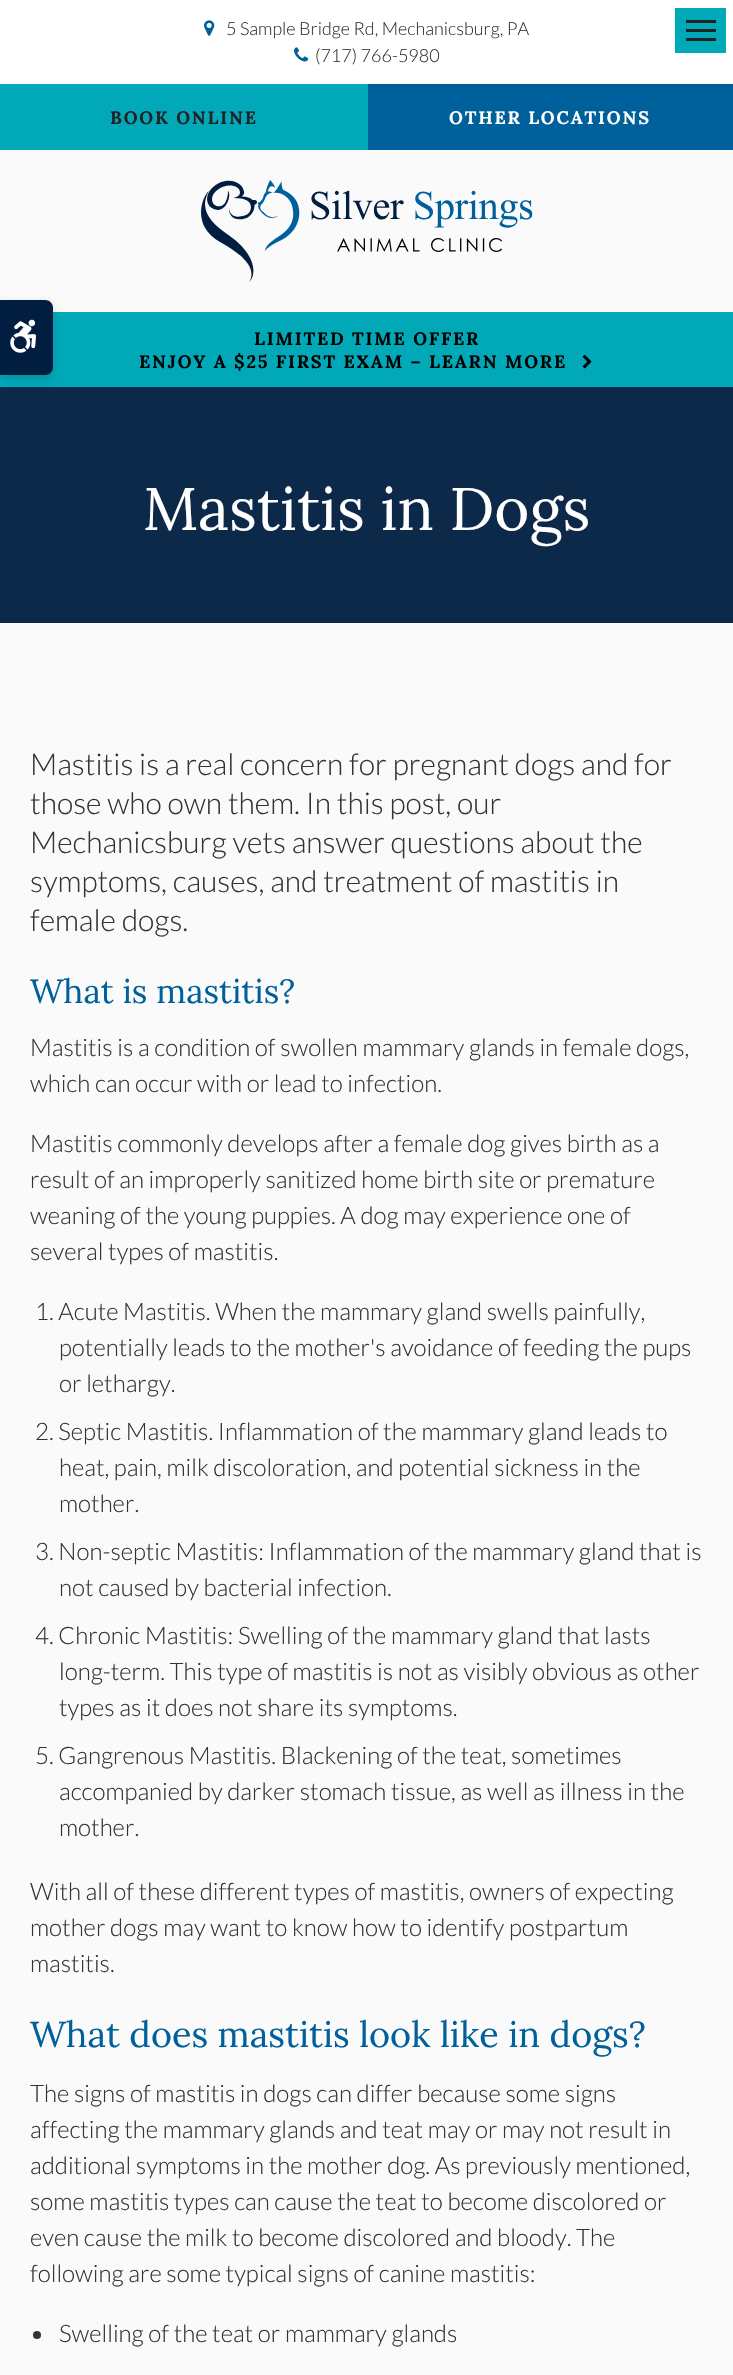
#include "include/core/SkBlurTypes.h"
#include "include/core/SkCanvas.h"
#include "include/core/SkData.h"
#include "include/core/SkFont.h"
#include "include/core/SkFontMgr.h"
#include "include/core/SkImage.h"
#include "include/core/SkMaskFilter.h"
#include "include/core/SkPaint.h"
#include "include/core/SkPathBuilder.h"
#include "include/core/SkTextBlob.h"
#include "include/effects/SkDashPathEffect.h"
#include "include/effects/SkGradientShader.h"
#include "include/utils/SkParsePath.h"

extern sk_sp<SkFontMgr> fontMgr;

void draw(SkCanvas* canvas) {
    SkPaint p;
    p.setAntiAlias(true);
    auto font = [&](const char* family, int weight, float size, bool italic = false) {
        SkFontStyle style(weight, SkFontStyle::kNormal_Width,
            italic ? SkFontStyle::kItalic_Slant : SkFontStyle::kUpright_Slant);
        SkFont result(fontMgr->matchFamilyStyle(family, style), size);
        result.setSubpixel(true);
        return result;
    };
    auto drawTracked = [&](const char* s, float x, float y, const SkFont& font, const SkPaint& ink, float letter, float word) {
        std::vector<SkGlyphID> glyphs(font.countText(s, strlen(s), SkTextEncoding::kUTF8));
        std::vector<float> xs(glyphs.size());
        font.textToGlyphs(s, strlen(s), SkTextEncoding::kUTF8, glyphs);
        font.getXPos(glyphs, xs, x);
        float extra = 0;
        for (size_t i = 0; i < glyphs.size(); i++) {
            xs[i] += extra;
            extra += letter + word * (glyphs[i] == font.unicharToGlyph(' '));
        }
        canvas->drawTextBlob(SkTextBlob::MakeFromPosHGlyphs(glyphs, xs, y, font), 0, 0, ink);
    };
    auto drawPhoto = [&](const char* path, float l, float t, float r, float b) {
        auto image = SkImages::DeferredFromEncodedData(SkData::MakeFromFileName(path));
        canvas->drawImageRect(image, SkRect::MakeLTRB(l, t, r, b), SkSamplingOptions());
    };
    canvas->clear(0xFFFAFAFA);
    p.setColor(0xFFFFFFFF);
    canvas->drawRect(SkRect::MakeLTRB(0, 0, 733, 84), p);
    drawPhoto("media/1.png", 204, 20, 215, 36);
    auto font1 = font("Lato", 300, 18);
    p.setColor(0xFF333333);
    canvas->drawString("5 Sample Bridge Rd, Mechanicsburg, PA", 226, 35, font1, p);
    drawPhoto("media/2.png", 294, 47, 309, 62);
    canvas->drawString("(717) 766-5980", 315, 62, font1, p);
    p.setColor(0xFF00A8B8);
    canvas->drawRect(SkRect::MakeLTRB(0, 84, 368, 150), p);
    auto font2 = font("Lora", 700, 18);
    p.setColor(0xFF222222);
    drawTracked("BOOK ONLINE", 110, 124, font2, p, 1.8f, 0);
    p.setColor(0xFF00609C);
    canvas->drawRect(SkRect::MakeLTRB(368, 84, 733, 150), p);
    p.setColor(0xFFFFFFFF);
    drawTracked("OTHER LOCATIONS", 449, 124, font2, p, 1.8f, 0);
    drawPhoto("media/3.png", 201, 180, 533, 282);
    p.setColor(0xFF00A8B8);
    canvas->drawRect(SkRect::MakeLTRB(0, 312, 733, 387), p);
    p.setColor(0xFF0D294A);
    canvas->drawRect(SkRect::MakeLTRB(0, 387, 733, 623), p);
    p.setColor(0x26000000);
    p.setMaskFilter(SkMaskFilter::MakeBlur(kNormal_SkBlurStyle, 4));
    canvas->drawRoundRect(SkRect::MakeLTRB(0, 303, 53, 378), 8, 8, p);
    p.setMaskFilter(nullptr);
    p.setColor(0xFF011E41);
    canvas->drawPath(SkPathBuilder().moveTo(0, 300).lineTo(45, 300).cubicTo(49.5f, 300, 53, 303.5f, 53, 308).lineTo(53, 367).cubicTo(53, 371.5f, 49.5f, 375, 45, 375).lineTo(0, 375).close().detach(), p);
    drawPhoto("media/4.png", 10, 319, 36, 353);
    {
        const struct { float l, t, r, b; SkColor color; } items[] = {
            {675, 8, 726, 53, 0xFF00A8B8},
            {686, 20, 716, 23, 0xFF222222},
            {686, 29, 716, 32, 0xFF222222},
            {686, 38, 716, 41, 0xFF222222},
        };
        for (auto [l, t, r, b, color] : items) {
            p.setColor(color);
            canvas->drawRect(SkRect::MakeLTRB(l, t, r, b), p);
        }
    }
    p.setColor(0xFF000000);
    drawTracked("LIMITED TIME OFFER", 254, 345, font2, p, 1.8f, 0);
    drawTracked("ENJOY A $25 FIRST EXAM – LEARN MORE", 139, 368, font2, p, 1.8f, 0);
    drawPhoto("media/5.png", 582, 354, 592, 369);
    auto font3 = font("Lora", 400, 60);
    p.setColor(0xFFFFFFFF);
    canvas->drawString("Mastitis in Dogs", 143, 530, font3, p);
    auto font4 = font("Lato", 300, 30);
    p.setColor(0xFF333333);
    {
        const struct { const char* s; float x, y; } items[] = {
            {"Mastitis is a real concern for pregnant dogs and for", 30, 775},
            {"those who own them. In this post, our", 30, 814},
            {"Mechanicsburg vets answer questions about the", 30, 853},
            {"symptoms, causes, and treatment of mastitis in", 30, 892},
            {"female dogs.", 30, 931},
        };
        for (auto [s, x, y] : items) {
            canvas->drawString(s, x, y, font4, p);
        }
    }
    auto font5 = font("Lora", 400, 33.5f);
    p.setColor(0xFF00609C);
    canvas->drawString("What is mastitis?", 30, 1003, font5, p);
    auto font6 = font("Lato", 300, 24);
    p.setColor(0xFF333333);
    {
        const struct { const char* s; float x, y; } items[] = {
            {"Mastitis is a condition of swollen mammary glands in female dogs,", 30, 1056},
            {"which can occur with or lead to infection.", 30, 1092},
            {"Mastitis commonly develops after a female dog gives birth as a", 30, 1152},
            {"result of an improperly sanitized home birth site or premature", 30, 1188},
            {"weaning of the young puppies. A dog may experience one of", 30, 1224},
            {"several types of mastitis.", 30, 1260},
            {"1. Acute Mastitis. When the mammary gland swells painfully,", 35, 1320},
            {"potentially leads to the mother's avoidance of feeding the pups", 59, 1356},
            {"or lethargy.", 59, 1392},
            {"2. Septic Mastitis. Inflammation of the mammary gland leads to", 35, 1440},
            {"heat, pain, milk discoloration, and potential sickness in the", 59, 1476},
            {"mother.", 59, 1512},
            {"3. Non-septic Mastitis: Inflammation of the mammary gland that is", 35, 1560},
            {"not caused by bacterial infection.", 59, 1596},
            {"4. Chronic Mastitis: Swelling of the mammary gland that lasts", 35, 1644},
            {"long-term. This type of mastitis is not as visibly obvious as other", 59, 1680},
            {"types as it does not share its symptoms.", 59, 1716},
            {"5. Gangrenous Mastitis. Blackening of the teat, sometimes", 35, 1764},
            {"accompanied by darker stomach tissue, as well as illness in the", 59, 1800},
            {"mother.", 59, 1836},
            {"With all of these different types of mastitis, owners of expecting", 30, 1900},
            {"mother dogs may want to know how to identify postpartum", 30, 1936},
            {"mastitis.", 30, 1972},
        };
        for (auto [s, x, y] : items) {
            canvas->drawString(s, x, y, font6, p);
        }
    }
    auto font7 = font("Lora", 400, 36);
    p.setColor(0xFF00609C);
    canvas->drawString("What does mastitis look like in dogs?", 30, 2047, font7, p);
    p.setColor(0xFF333333);
    {
        const struct { const char* s; float x, y; } items[] = {
            {"The signs of mastitis in dogs can differ because some signs", 30, 2102},
            {"affecting the mammary glands and teat may or may not result in", 30, 2138},
            {"additional symptoms in the mother dog. As previously mentioned,", 30, 2174},
            {"some mastitis types can cause the teat to become discolored or", 30, 2210},
            {"even cause the milk to become discolored and bloody. The", 30, 2246},
            {"following are some typical signs of canine mastitis:", 30, 2282},
        };
        for (auto [s, x, y] : items) {
            canvas->drawString(s, x, y, font6, p);
        }
    }
    canvas->drawCircle(37, 2335, 4, p);
    canvas->drawString("Swelling of the teat or mammary glands", 59, 2342, font6, p);
}
